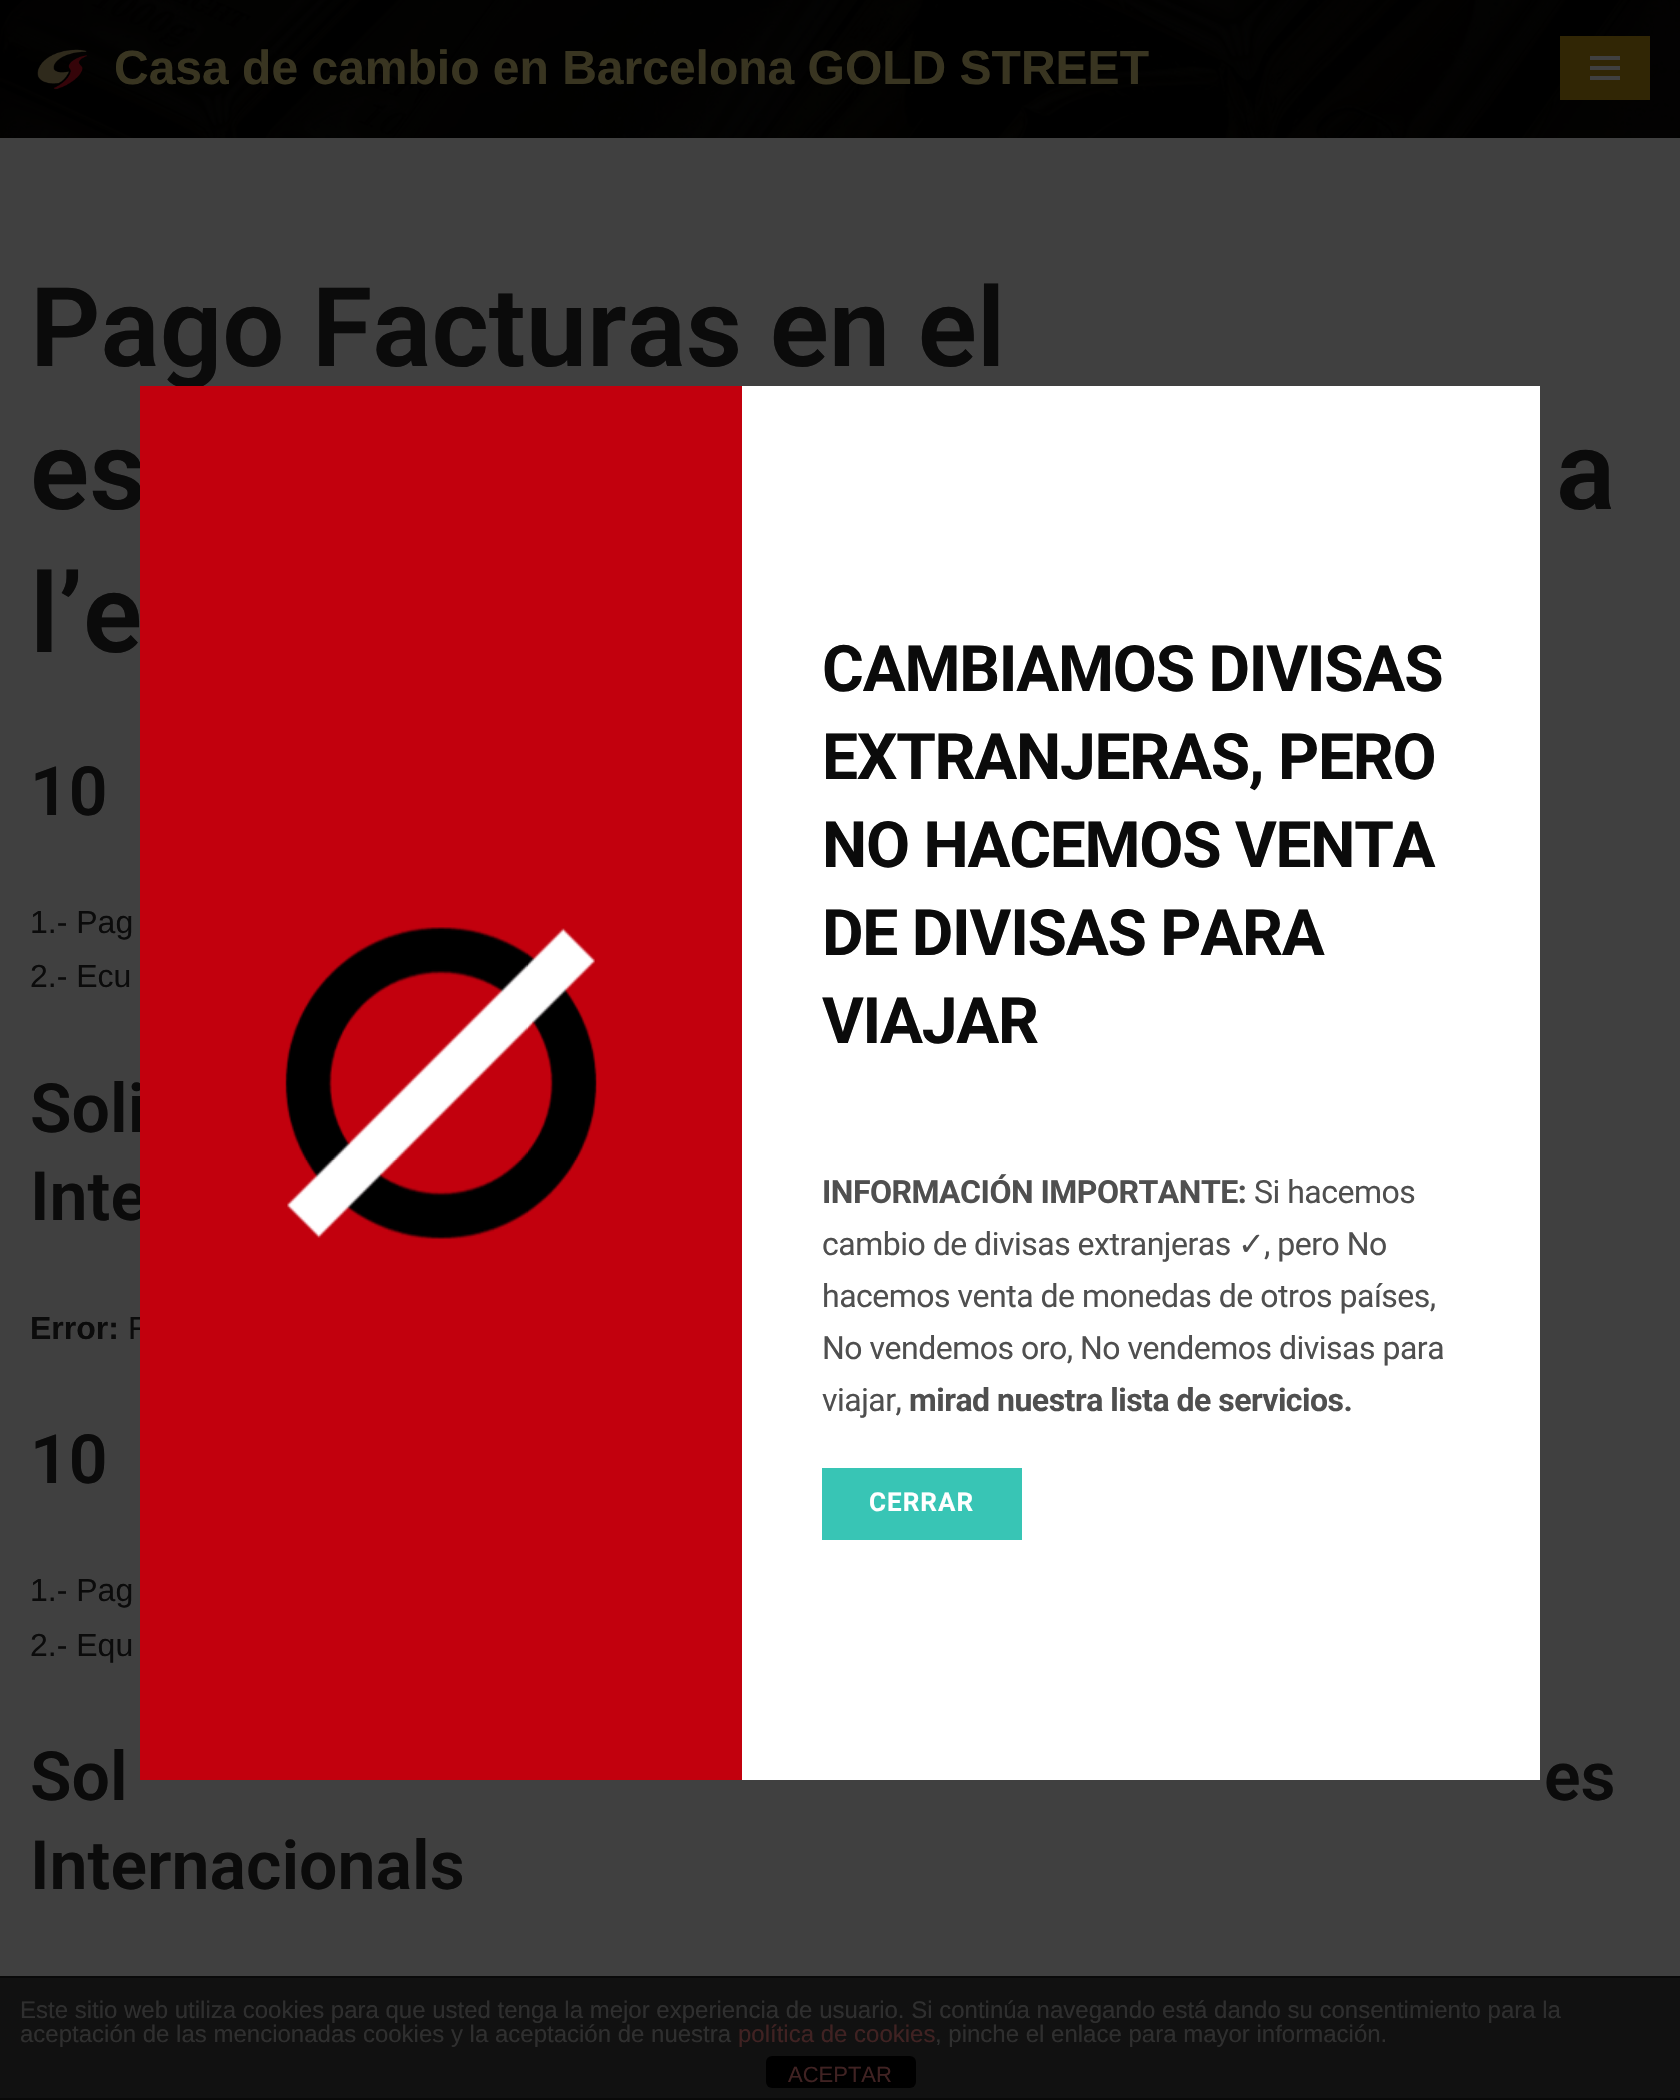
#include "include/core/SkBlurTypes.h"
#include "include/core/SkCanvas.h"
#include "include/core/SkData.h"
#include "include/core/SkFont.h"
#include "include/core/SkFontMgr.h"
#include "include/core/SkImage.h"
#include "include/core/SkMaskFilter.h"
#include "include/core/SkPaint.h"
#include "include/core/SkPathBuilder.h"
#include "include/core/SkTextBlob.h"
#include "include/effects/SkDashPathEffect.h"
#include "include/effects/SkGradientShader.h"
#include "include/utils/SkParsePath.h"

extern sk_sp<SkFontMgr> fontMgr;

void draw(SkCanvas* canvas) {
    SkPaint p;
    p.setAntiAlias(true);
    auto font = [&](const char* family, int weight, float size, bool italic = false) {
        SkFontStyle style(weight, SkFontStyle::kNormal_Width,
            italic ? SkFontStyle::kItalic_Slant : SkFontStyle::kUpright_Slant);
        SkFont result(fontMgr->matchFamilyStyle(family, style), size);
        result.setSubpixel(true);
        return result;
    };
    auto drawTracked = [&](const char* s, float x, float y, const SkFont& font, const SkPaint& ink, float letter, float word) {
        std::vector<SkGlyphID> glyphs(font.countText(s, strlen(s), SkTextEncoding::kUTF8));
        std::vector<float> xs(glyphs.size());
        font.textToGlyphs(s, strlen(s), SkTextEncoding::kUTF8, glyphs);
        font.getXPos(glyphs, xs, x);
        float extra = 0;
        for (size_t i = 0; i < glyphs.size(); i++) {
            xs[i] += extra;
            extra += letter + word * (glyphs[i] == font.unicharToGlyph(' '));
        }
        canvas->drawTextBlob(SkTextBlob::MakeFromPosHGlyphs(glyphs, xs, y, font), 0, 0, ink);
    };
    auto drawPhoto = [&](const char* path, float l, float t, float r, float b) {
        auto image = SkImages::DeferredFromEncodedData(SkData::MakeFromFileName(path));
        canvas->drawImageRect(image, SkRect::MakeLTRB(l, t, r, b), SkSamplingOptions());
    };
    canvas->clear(0xFF404040);
    drawPhoto("media/1.png", 0, 0, 1680, 138);
    drawPhoto("media/2.png", 37, 49, 87, 90);
    auto font1 = font("Liberation Sans", 700, 48);
    p.setColor(0xFF393521);
    canvas->drawString("Casa de cambio en Barcelona GOLD STREET", 114, 84, font1, p);
    {
        const struct { float l, t, r, b; SkColor color; } items[] = {
            {1560, 36, 1650, 100, 0xFF312605},
            {1590, 56, 1620, 60, 0xFF404040},
            {1590, 66, 1620, 70, 0xFF404040},
            {1590, 76, 1620, 80, 0xFF404040},
        };
        for (auto [l, t, r, b, color] : items) {
            p.setColor(color);
            canvas->drawRect(SkRect::MakeLTRB(l, t, r, b), p);
        }
    }
    auto font2 = font("Roboto", 600, 110);
    p.setColor(0xFF0B0B0B);
    {
        const struct { const char* s; float x, y; } items[] = {
            {"Pago Facturas en el", 30, 366},
            {"es", 30, 509},
            {"a", 1556, 509},
            {"l’e", 30, 652},
        };
        for (auto [s, x, y] : items) {
            canvas->drawString(s, x, y, font2, p);
        }
    }
    auto font3 = font("Roboto", 600, 68);
    canvas->drawString("10", 30, 815, font3, p);
    auto font4 = font("Liberation Sans", 400, 32);
    canvas->drawString("1.- Pag", 30, 933, font4, p);
    canvas->drawString("2.- Ecu", 30, 987, font4, p);
    canvas->drawString("Soli", 30, 1132, font3, p);
    canvas->drawString("Inte", 30, 1220, font3, p);
    auto font5 = font("Liberation Sans", 700, 32);
    canvas->drawString("Error:", 30, 1339, font5, p);
    canvas->drawString("F", 128, 1339, font4, p);
    canvas->drawString("10", 30, 1483, font3, p);
    canvas->drawString("1.- Pag", 30, 1601, font4, p);
    canvas->drawString("2.- Equ", 30, 1656, font4, p);
    {
        const struct { const char* s; float x, y; } items[] = {
            {"Sol", 30, 1800},
            {"es", 1544, 1800},
            {"Internacionals", 30, 1889},
        };
        for (auto [s, x, y] : items) {
            canvas->drawString(s, x, y, font3, p);
        }
    }
    p.setColor(0xFFFFFFFF);
    canvas->drawRect(SkRect::MakeLTRB(742, 386, 1540, 1780), p);
    p.setColor(0xFFC2000D);
    canvas->drawRect(SkRect::MakeLTRB(140, 386, 742, 1780), p);
    drawPhoto("media/3.png", 285, 927, 597, 1240);
    auto font6 = font("Roboto", 700, 64);
    p.setColor(0xFF0B0B0B);
    {
        const struct { const char* s; float x, y; } items[] = {
            {"CAMBIAMOS DIVISAS", 822, 691},
            {"EXTRANJERAS, PERO", 822, 779},
            {"NO HACEMOS VENTA", 822, 867},
            {"DE DIVISAS PARA", 822, 955},
            {"VIAJAR", 822, 1043},
        };
        for (auto [s, x, y] : items) {
            drawTracked(s, x, y, font6, p, -1.25f, 0);
        }
    }
    auto font7 = font("Roboto", 700, 32);
    p.setColor(0xFF4F4F4F);
    drawTracked("INFORMACIÓN IMPORTANTE:", 822, 1203, font7, p, -0.5f, 0);
    auto font8 = font("Roboto", 400, 32);
    drawTracked("Si hacemos", 1254, 1203, font8, p, -0.5f, 0);
    drawTracked("cambio de divisas extranjeras", 822, 1255, font8, p, -0.5f, 0);
    auto font9 = font("DejaVu Sans", 400, 32);
    drawTracked("✓", 1238, 1255, font9, p, -0.5f, 0);
    {
        const struct { const char* s; float x, y; } items[] = {
            {", pero No", 1264, 1255},
            {"hacemos venta de monedas de otros países,", 822, 1307},
            {"No vendemos oro, No vendemos divisas para", 822, 1359},
            {"viajar,", 822, 1411},
        };
        for (auto [s, x, y] : items) {
            drawTracked(s, x, y, font8, p, -0.5f, 0);
        }
    }
    drawTracked("mirad nuestra lista de servicios.", 909, 1411, font7, p, -0.5f, 0);
    p.setColor(0xFF38C5B5);
    canvas->drawRect(SkRect::MakeLTRB(822, 1468, 1022, 1540), p);
    auto font10 = font("Roboto", 700, 26);
    p.setColor(0xFFFFFFFF);
    drawTracked("CERRAR", 869, 1511, font10, p, 1, 0);
    {
        const struct { float l, t, r, b; SkColor color; } items[] = {
            {0, 1978, 1680, 2098, 0xFF111111},
            {0, 1976, 1680, 1978, 0xFF090909},
            {0, 2098, 1680, 2100, 0xFF090909},
        };
        for (auto [l, t, r, b, color] : items) {
            p.setColor(color);
            canvas->drawRect(SkRect::MakeLTRB(l, t, r, b), p);
        }
    }
    auto font11 = font("Liberation Sans", 400, 24);
    p.setColor(0xFF2F2F2F);
    canvas->drawString("Este sitio web utiliza cookies para que usted tenga la mejor experiencia de usuario. Si continúa navegando está dando su consentimiento para la", 20, 2018, font11, p);
    canvas->drawString("aceptación de las mencionadas cookies y la aceptación de nuestra", 20, 2042, font11, p);
    p.setColor(0xFF402222);
    canvas->drawString("política de cookies", 738, 2042, font11, p);
    p.setColor(0xFF2F2F2F);
    canvas->drawString(", pinche el enlace para mayor información.", 935, 2042, font11, p);
    p.setColor(0xFF000000);
    canvas->drawRoundRect(SkRect::MakeLTRB(766, 2056, 916, 2088), 6, 6, p);
    auto font12 = font("Liberation Sans", 400, 22);
    p.setColor(0xFF402222);
    canvas->drawString("ACEPTAR", 788, 2082, font12, p);
}
